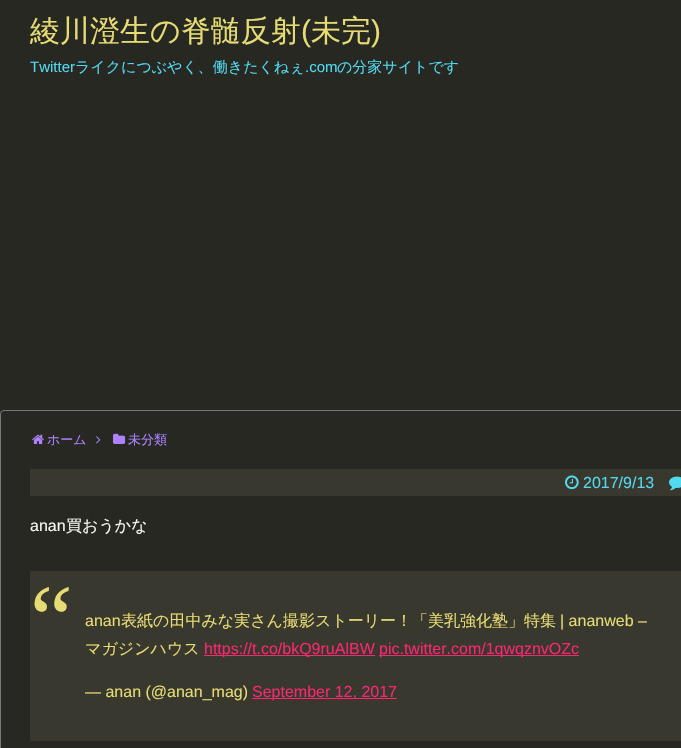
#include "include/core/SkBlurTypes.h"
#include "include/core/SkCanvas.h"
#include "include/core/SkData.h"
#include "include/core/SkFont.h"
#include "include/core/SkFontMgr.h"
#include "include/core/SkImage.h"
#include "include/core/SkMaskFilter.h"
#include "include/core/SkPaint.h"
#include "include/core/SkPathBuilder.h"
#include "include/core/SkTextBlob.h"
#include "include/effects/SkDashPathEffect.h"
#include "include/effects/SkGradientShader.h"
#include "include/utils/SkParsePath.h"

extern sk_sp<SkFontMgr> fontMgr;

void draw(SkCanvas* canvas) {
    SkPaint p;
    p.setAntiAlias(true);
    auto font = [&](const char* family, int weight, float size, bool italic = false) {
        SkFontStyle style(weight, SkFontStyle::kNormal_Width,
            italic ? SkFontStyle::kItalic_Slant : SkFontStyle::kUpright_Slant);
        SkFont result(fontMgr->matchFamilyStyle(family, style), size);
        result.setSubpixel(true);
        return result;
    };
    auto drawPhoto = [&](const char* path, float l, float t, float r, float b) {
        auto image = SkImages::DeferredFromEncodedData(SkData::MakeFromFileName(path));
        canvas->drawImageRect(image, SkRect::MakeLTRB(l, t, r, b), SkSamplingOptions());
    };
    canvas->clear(0xFF272822);
    auto font1 = font("WenQuanYi Zen Hei", 500, 30);
    p.setColor(0xFFE6DB74);
    canvas->drawString("綾川澄生の脊髄反射", 30, 41, font1, p);
    auto font2 = font("Liberation Sans", 400, 30);
    canvas->drawString("(", 301, 41, font2, p);
    canvas->drawString("未完", 311, 41, font1, p);
    canvas->drawString(")", 371, 41, font2, p);
    auto font3 = font("Liberation Sans", 400, 15);
    p.setColor(0xFF52D9EF);
    canvas->drawString("Twitter", 30, 72, font3, p);
    auto font4 = font("WenQuanYi Zen Hei", 500, 15);
    canvas->drawString("ライクにつぶやく、働きたくねぇ", 75, 72, font4, p);
    canvas->drawString(".com", 305, 72, font3, p);
    canvas->drawString("の分家サイトです", 337, 72, font4, p);
    p.setStyle(SkPaint::kStroke_Style);
    p.setStrokeWidth(1);
    p.setColor(0xFF777777);
    canvas->drawRoundRect(SkRect::MakeLTRB(0.5f, 410.5f, 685.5f, 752.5f), 3.5f, 3.5f, p);
    drawPhoto("media/1.png", 32, 434, 44, 444);
    auto font5 = font("WenQuanYi Zen Hei", 500, 13);
    p.setStyle(SkPaint::kFill_Style);
    p.setColor(0xFFAE81FF);
    canvas->drawString("ホーム", 47, 444, font5, p);
    drawPhoto("media/2.png", 96, 436, 101, 444);
    drawPhoto("media/3.png", 113, 433, 126, 444);
    canvas->drawString("未分類", 128, 444, font5, p);
    p.setColor(0xFF39382E);
    canvas->drawRect(SkRect::MakeLTRB(30, 469, 681, 496), p);
    drawPhoto("media/4.png", 565, 475, 579, 490);
    auto font6 = font("Liberation Sans", 400, 16);
    p.setColor(0xFF52D9EF);
    canvas->drawString("2017/9/13", 583, 488, font6, p);
    drawPhoto("media/5.png", 669, 476, 681, 491);
    p.setColor(0xFFF8F8F2);
    canvas->drawString("anan", 30, 531, font6, p);
    auto font7 = font("WenQuanYi Zen Hei", 500, 16);
    canvas->drawString("買おうかな", 66, 531, font7, p);
    p.setColor(0xFF39382E);
    canvas->drawRect(SkRect::MakeLTRB(30, 571, 681, 741), p);
    auto font8 = font("Liberation Serif", 400, 96);
    p.setColor(0xFFE6DB74);
    canvas->drawString("“", 30, 651, font8, p);
    canvas->drawString("anan", 85, 626, font6, p);
    canvas->drawString("表紙の田中みな実さん撮影ストーリー！「美乳強化塾」特集", 121, 626, font7, p);
    canvas->drawString("| ananweb –", 560, 626, font6, p);
    canvas->drawString("マガジンハウス", 85, 654, font7, p);
    p.setColor(0xFFF92672);
    canvas->drawRect(SkRect::MakeLTRB(204, 655, 375, 656), p);
    canvas->drawString("https://t.co/bkQ9ruAlBW", 204, 654, font6, p);
    canvas->drawRect(SkRect::MakeLTRB(379, 655, 579, 656), p);
    canvas->drawString("pic.twitter.com/1qwqznvOZc", 379, 654, font6, p);
    p.setColor(0xFFE6DB74);
    canvas->drawString("— anan (@anan_mag)", 85, 697, font6, p);
    p.setColor(0xFFF92672);
    canvas->drawRect(SkRect::MakeLTRB(252, 698, 397, 699), p);
    canvas->drawString("September 12, 2017", 252, 697, font6, p);
}
